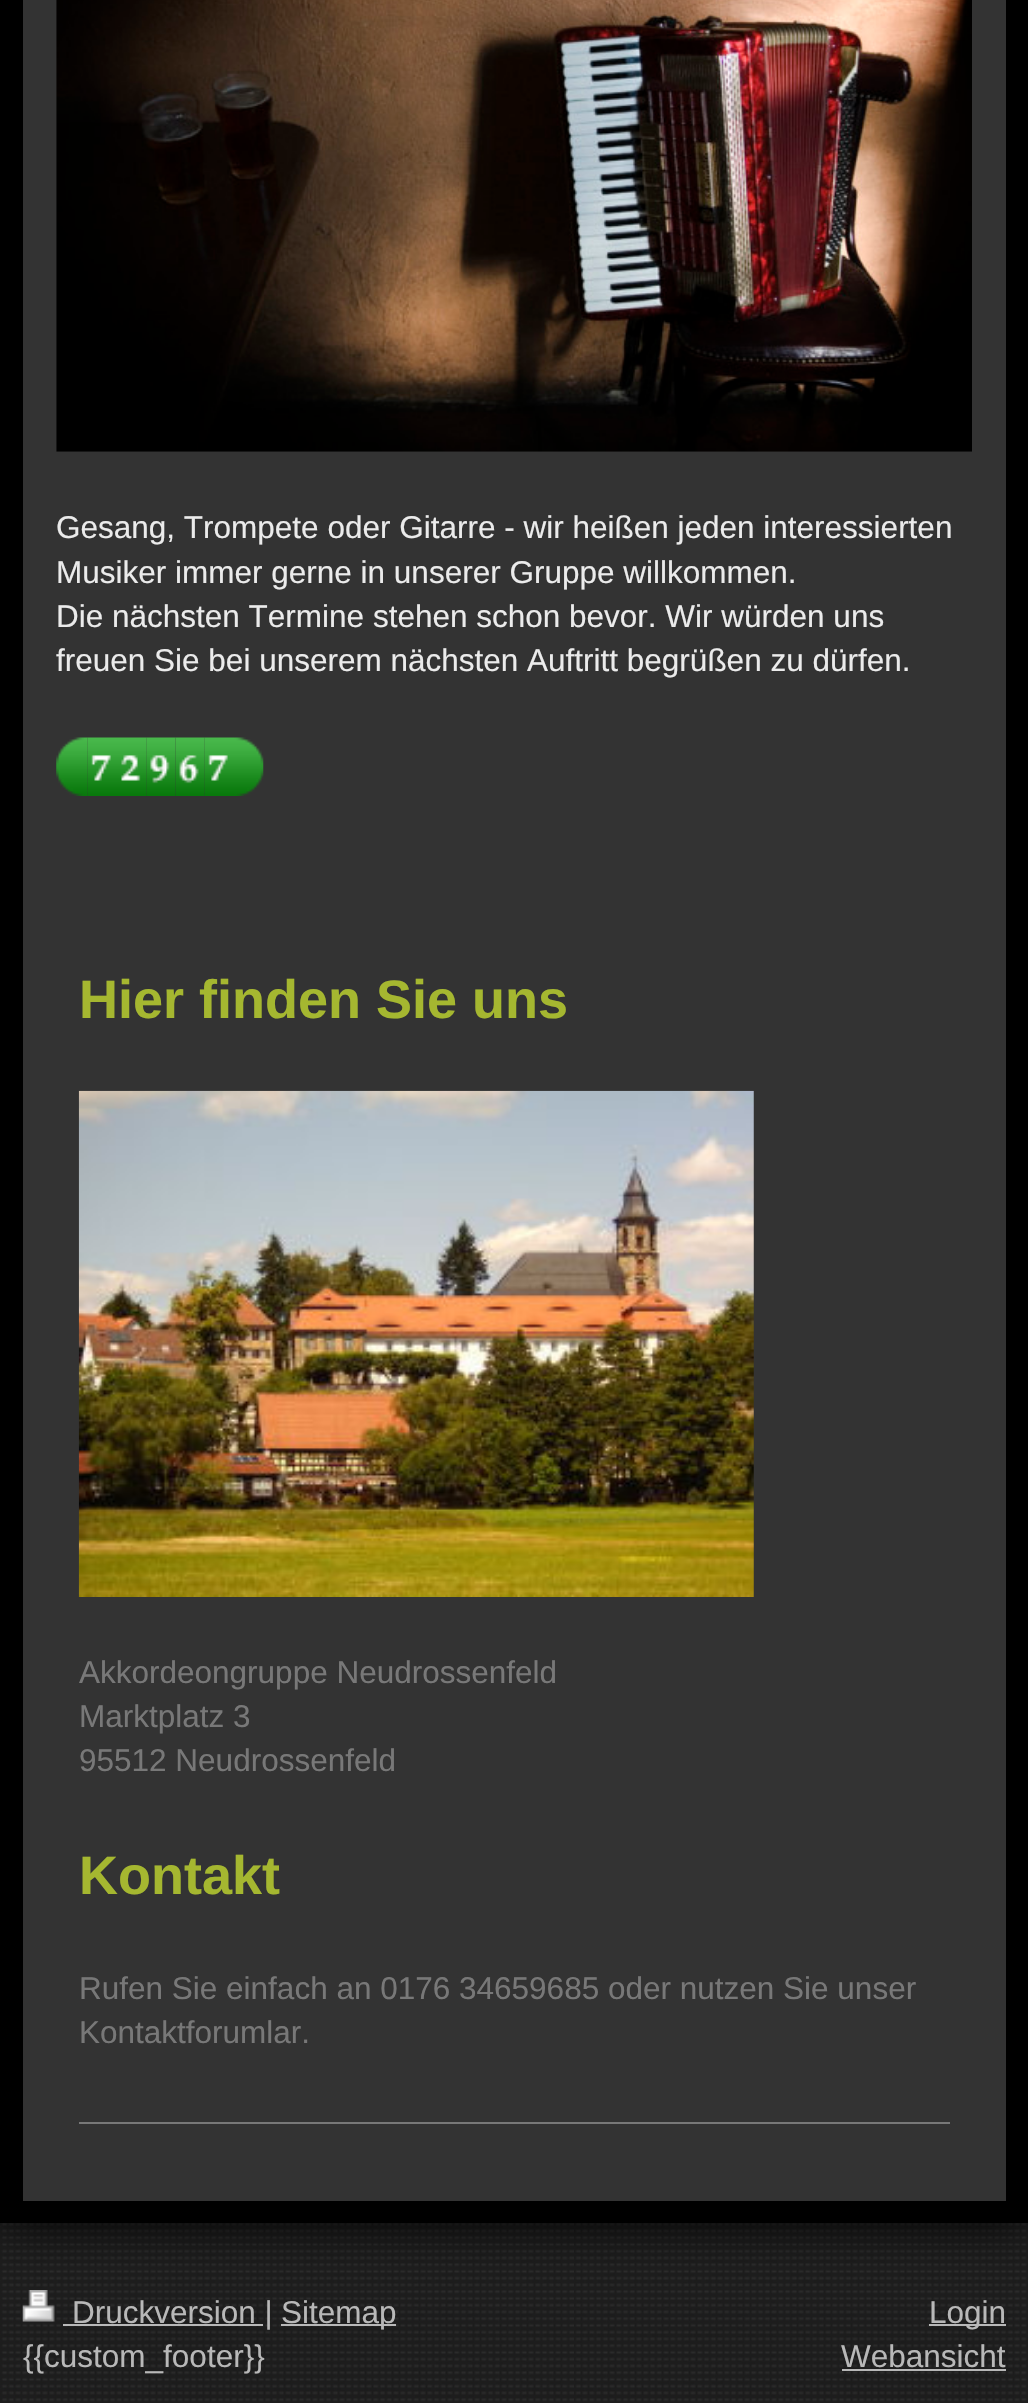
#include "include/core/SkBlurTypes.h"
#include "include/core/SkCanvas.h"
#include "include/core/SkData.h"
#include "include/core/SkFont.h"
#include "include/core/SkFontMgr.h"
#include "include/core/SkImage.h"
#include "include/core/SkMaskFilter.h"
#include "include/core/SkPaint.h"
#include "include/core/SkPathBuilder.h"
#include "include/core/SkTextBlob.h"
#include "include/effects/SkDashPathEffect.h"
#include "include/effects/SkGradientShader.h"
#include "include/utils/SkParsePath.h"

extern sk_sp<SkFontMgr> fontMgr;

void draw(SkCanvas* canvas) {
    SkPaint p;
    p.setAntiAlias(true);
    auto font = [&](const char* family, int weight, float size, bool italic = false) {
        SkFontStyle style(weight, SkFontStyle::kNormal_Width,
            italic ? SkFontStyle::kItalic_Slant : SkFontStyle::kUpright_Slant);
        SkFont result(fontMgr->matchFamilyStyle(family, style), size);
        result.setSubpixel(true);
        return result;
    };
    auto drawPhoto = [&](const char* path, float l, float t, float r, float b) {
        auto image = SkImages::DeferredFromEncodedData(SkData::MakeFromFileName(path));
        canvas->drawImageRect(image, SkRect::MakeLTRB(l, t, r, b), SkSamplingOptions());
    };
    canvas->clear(0xFFFFFFFF);
    drawPhoto("media/1.png", 0, 2223, 1028, 2403);
    p.setColor(0xFF000000);
    p.setMaskFilter(SkMaskFilter::MakeBlur(kNormal_SkBlurStyle, 22.5f));
    canvas->drawRect(SkRect::MakeLTRB(0, -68, 1028, 2223), p);
    p.setMaskFilter(nullptr);
    canvas->drawRect(SkRect::MakeLTRB(0, 0, 1028, 2223), p);
    p.setColor(0xFF333333);
    canvas->drawRect(SkRect::MakeLTRB(23, 0, 1006, 2201), p);
    drawPhoto("media/2.png", 56, 0, 972, 452);
    auto font1 = font("Liberation Sans", 400, 31.5f);
    p.setColor(0xFFEBEBEB);
    {
        const struct { const char* s; float x, y; } items[] = {
            {"Gesang, Trompete oder Gitarre - wir heißen jeden interessierten", 56, 538},
            {"Musiker immer gerne in unserer Gruppe willkommen.", 56, 583},
            {"Die nächsten Termine stehen schon bevor. Wir würden uns", 56, 627},
            {"freuen Sie bei unserem nächsten Auftritt begrüßen zu dürfen.", 56, 671},
        };
        for (auto [s, x, y] : items) {
            canvas->drawString(s, x, y, font1, p);
        }
    }
    drawPhoto("media/3.png", 56, 737, 88, 796);
    drawPhoto("media/4.png", 87, 737, 117, 796);
    drawPhoto("media/5.png", 117, 737, 147, 796);
    drawPhoto("media/6.png", 146, 737, 176, 796);
    drawPhoto("media/7.png", 175, 737, 205, 796);
    drawPhoto("media/8.png", 204, 737, 234, 796);
    drawPhoto("media/9.png", 234, 737, 264, 796);
    auto font2 = font("Liberation Sans", 700, 54);
    p.setColor(0xFFA5B730);
    canvas->drawString("Hier finden Sie uns", 79, 1018, font2, p);
    drawPhoto("media/10.png", 78, 1090, 754, 1597);
    p.setColor(0xFF787878);
    {
        const struct { const char* s; float x, y; } items[] = {
            {"Akkordeongruppe Neudrossenfeld", 79, 1683},
            {"Marktplatz 3", 79, 1727},
            {"95512 Neudrossenfeld", 79, 1771},
        };
        for (auto [s, x, y] : items) {
            canvas->drawString(s, x, y, font1, p);
        }
    }
    p.setColor(0xFFA5B730);
    canvas->drawString("Kontakt", 79, 1894, font2, p);
    p.setColor(0xFF787878);
    canvas->drawString("Rufen Sie einfach an 0176 34659685 oder nutzen Sie unser", 79, 1999, font1, p);
    canvas->drawString("Kontaktforumlar.", 79, 2043, font1, p);
    canvas->drawRect(SkRect::MakeLTRB(79, 2122, 950, 2124), p);
    drawPhoto("media/11.png", 22, 2290, 55, 2322);
    p.setColor(0xFFB8B8B8);
    canvas->drawRect(SkRect::MakeLTRB(63, 2324, 263, 2326), p);
    canvas->drawString("Druckversion |", 72, 2323, font1, p);
    canvas->drawRect(SkRect::MakeLTRB(281, 2324, 396, 2326), p);
    canvas->drawString("Sitemap", 281, 2323, font1, p);
    canvas->drawString("{{custom_footer}}", 23, 2367, font1, p);
    canvas->drawRect(SkRect::MakeLTRB(929, 2324, 1006, 2326), p);
    canvas->drawString("Login", 929, 2323, font1, p);
    canvas->drawString("Webansicht", 841, 2367, font1, p);
    canvas->drawRect(SkRect::MakeLTRB(842, 2369, 1006, 2371), p);
}
